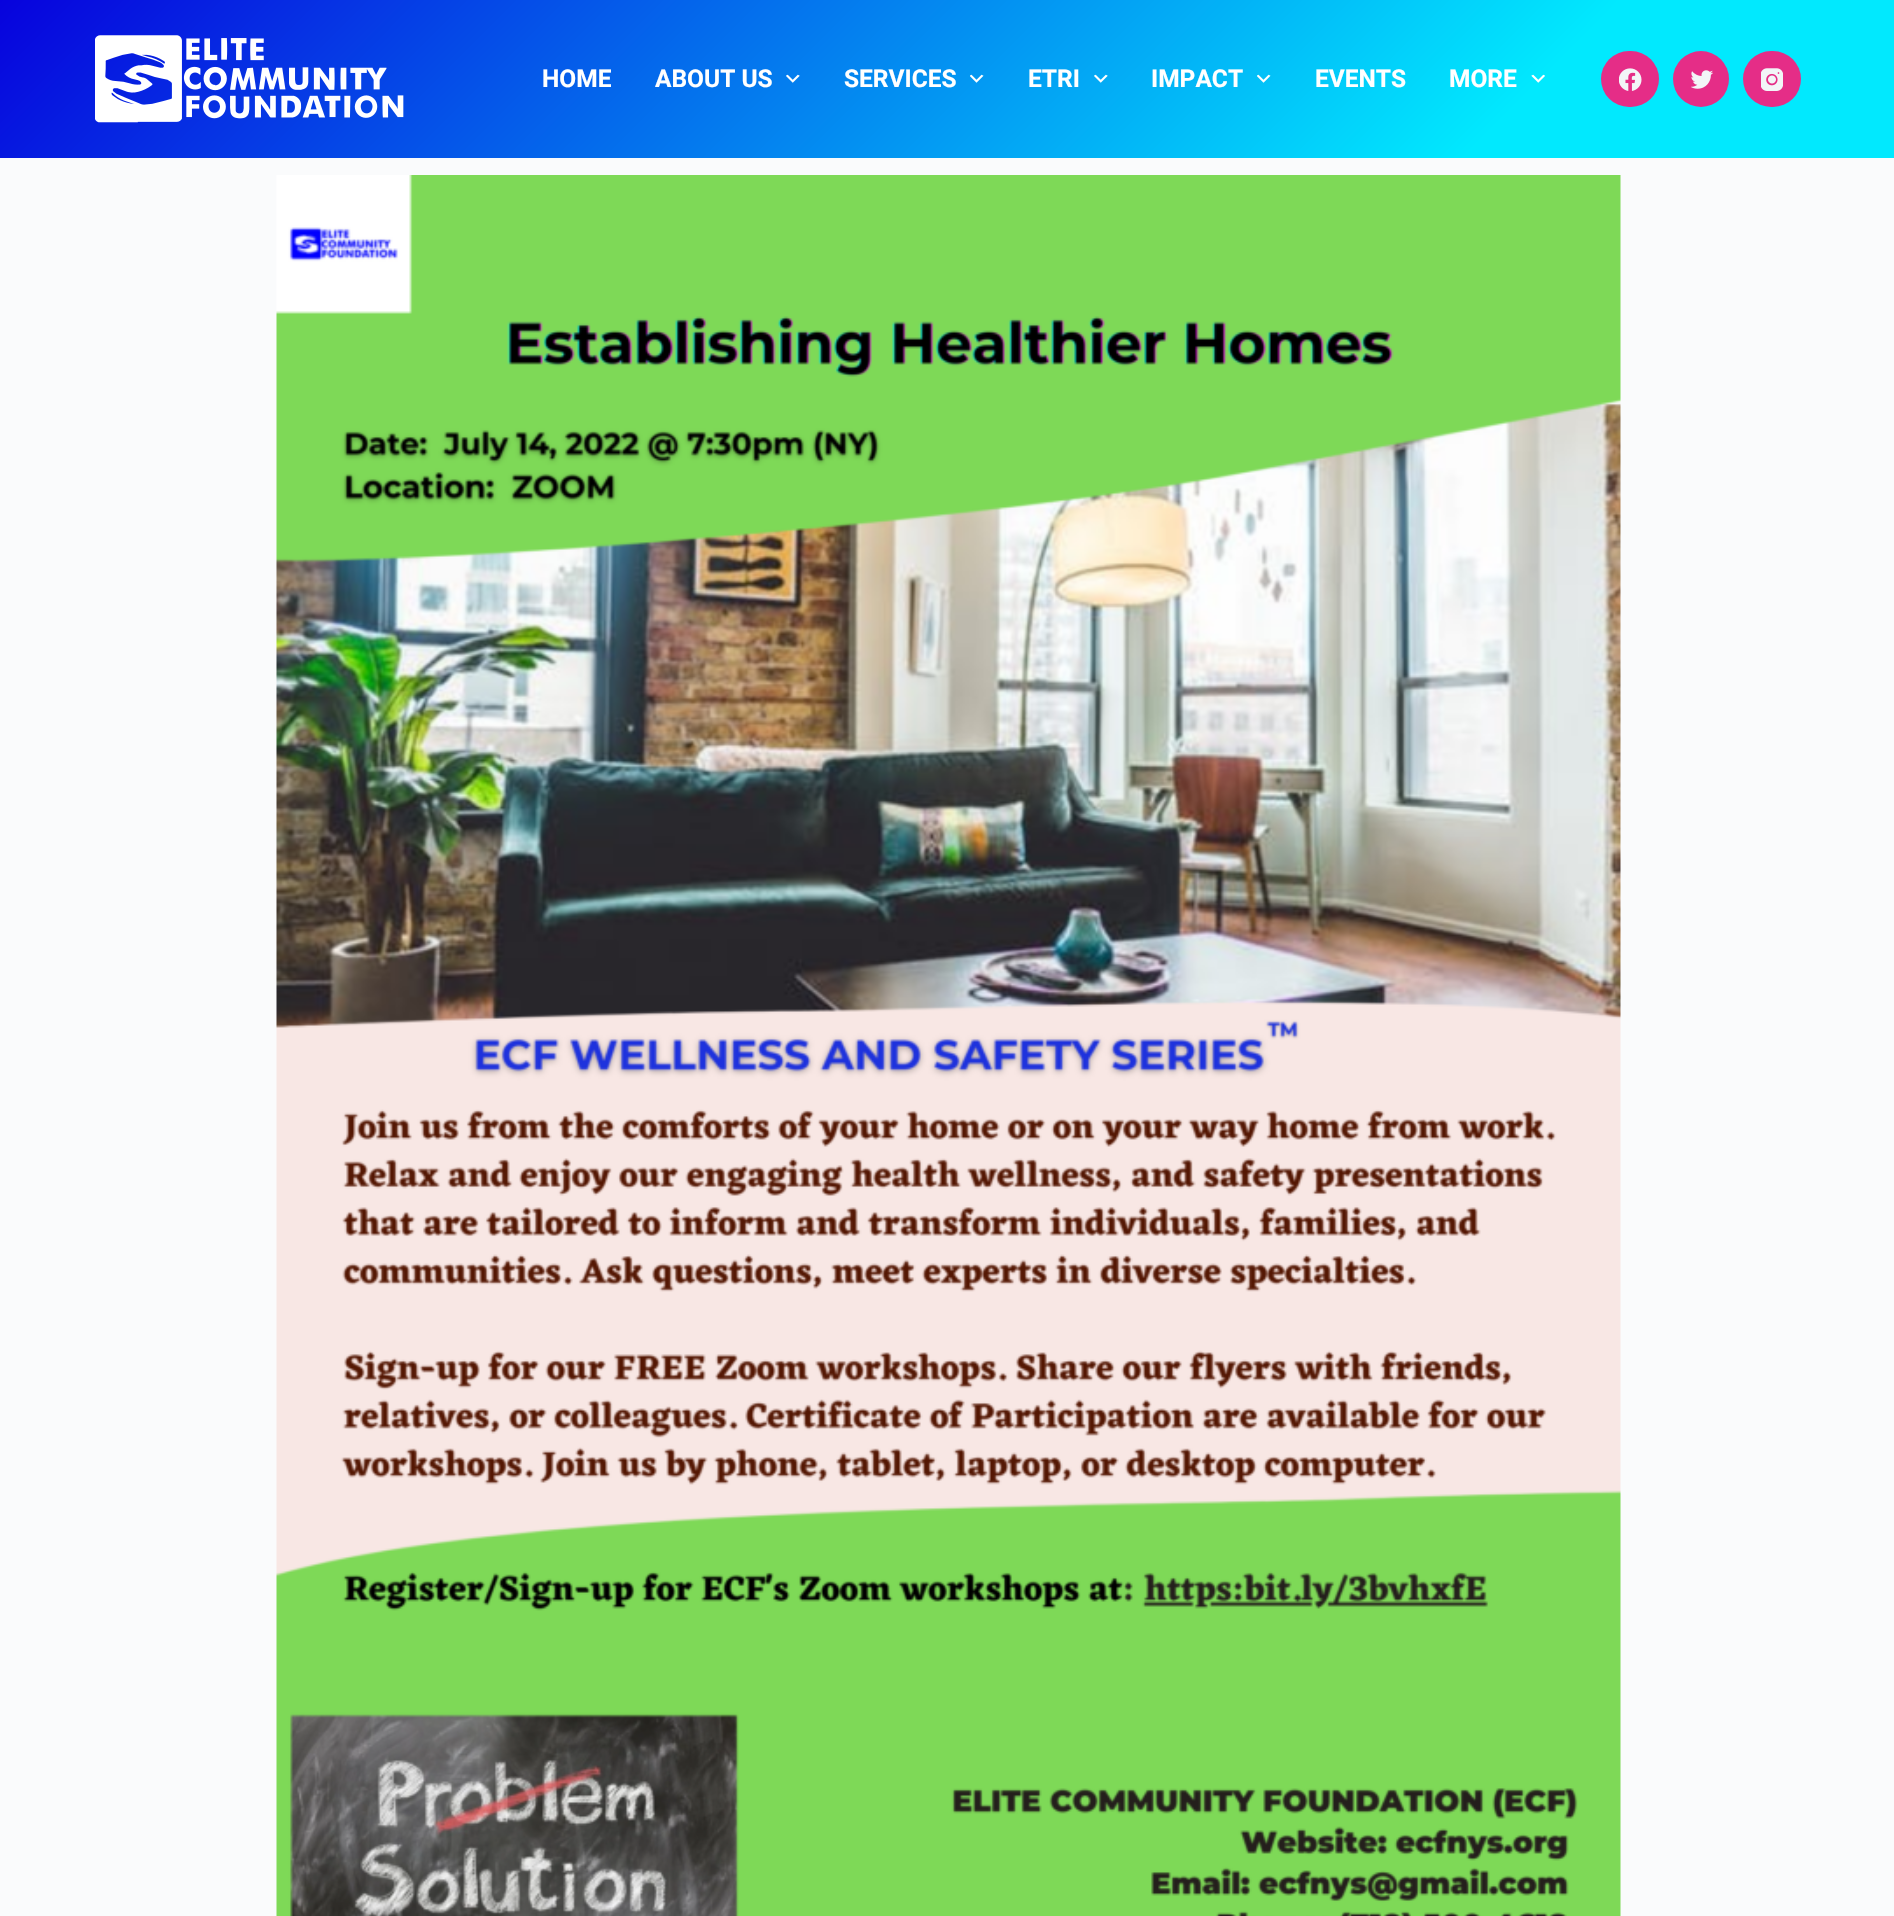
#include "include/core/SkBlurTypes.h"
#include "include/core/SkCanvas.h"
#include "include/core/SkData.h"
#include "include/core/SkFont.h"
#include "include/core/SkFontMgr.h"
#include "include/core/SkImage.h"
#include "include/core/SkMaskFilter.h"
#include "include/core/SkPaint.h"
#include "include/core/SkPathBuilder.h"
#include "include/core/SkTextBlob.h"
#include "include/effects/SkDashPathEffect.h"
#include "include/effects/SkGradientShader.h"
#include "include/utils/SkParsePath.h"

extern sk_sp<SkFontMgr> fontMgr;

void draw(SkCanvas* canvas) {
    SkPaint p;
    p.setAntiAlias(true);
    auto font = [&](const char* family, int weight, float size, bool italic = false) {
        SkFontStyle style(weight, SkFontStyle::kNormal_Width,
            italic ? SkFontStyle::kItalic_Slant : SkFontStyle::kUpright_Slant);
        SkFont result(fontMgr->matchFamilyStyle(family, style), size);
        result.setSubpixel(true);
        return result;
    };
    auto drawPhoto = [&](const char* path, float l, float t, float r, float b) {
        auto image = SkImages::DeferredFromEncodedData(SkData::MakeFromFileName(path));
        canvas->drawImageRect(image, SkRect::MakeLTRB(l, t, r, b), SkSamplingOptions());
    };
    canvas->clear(0xFFFAFBFC);
    {
        const SkColor colors[] = {0xFF0702DD, 0xFF01E9FE};
        const float stops[] = {0, 0.79f};
        const SkPoint ends[] = {{434, -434}, {1461, 592}};
        p.setShader(SkGradientShader::MakeLinear(ends, colors, stops, 2, SkTileMode::kClamp));
        p.setAlpha(255);
    }
    canvas->drawRect(SkRect::MakeLTRB(0, 0, 1894, 158), p);
    drawPhoto("media/1.png", 95, 35, 404, 123);
    auto font1 = font("Roboto", 700, 24.5f);
    p.setShader(nullptr);
    p.setColor(0xFFFFFFFF);
    canvas->drawString("HOME", 542, 87, font1, p);
    canvas->drawString("ABOUT US", 655, 87, font1, p);
    drawPhoto("media/2.png", 786, 74, 800, 83);
    canvas->drawString("SERVICES", 844, 87, font1, p);
    drawPhoto("media/3.png", 970, 74, 984, 83);
    canvas->drawString("ETRI", 1028, 87, font1, p);
    drawPhoto("media/4.png", 1094, 74, 1108, 83);
    canvas->drawString("IMPACT", 1151, 87, font1, p);
    drawPhoto("media/5.png", 1257, 74, 1271, 83);
    canvas->drawString("EVENTS", 1315, 87, font1, p);
    canvas->drawString("MORE", 1449, 87, font1, p);
    drawPhoto("media/6.png", 1531, 74, 1545, 83);
    p.setColor(0xFFE52D87);
    canvas->drawRoundRect(SkRect::MakeLTRB(1601, 51, 1659, 107), 28, 28, p);
    drawPhoto("media/7.png", 1619, 68, 1642, 91);
    canvas->drawCircle(1701, 79, 28, p);
    drawPhoto("media/8.png", 1691, 70, 1713, 89);
    canvas->drawRoundRect(SkRect::MakeLTRB(1743, 51, 1801, 107), 28, 28, p);
    drawPhoto("media/9.png", 1761, 68, 1783, 91);
    drawPhoto("media/10.png", 276, 175, 1621, 1916);
}
